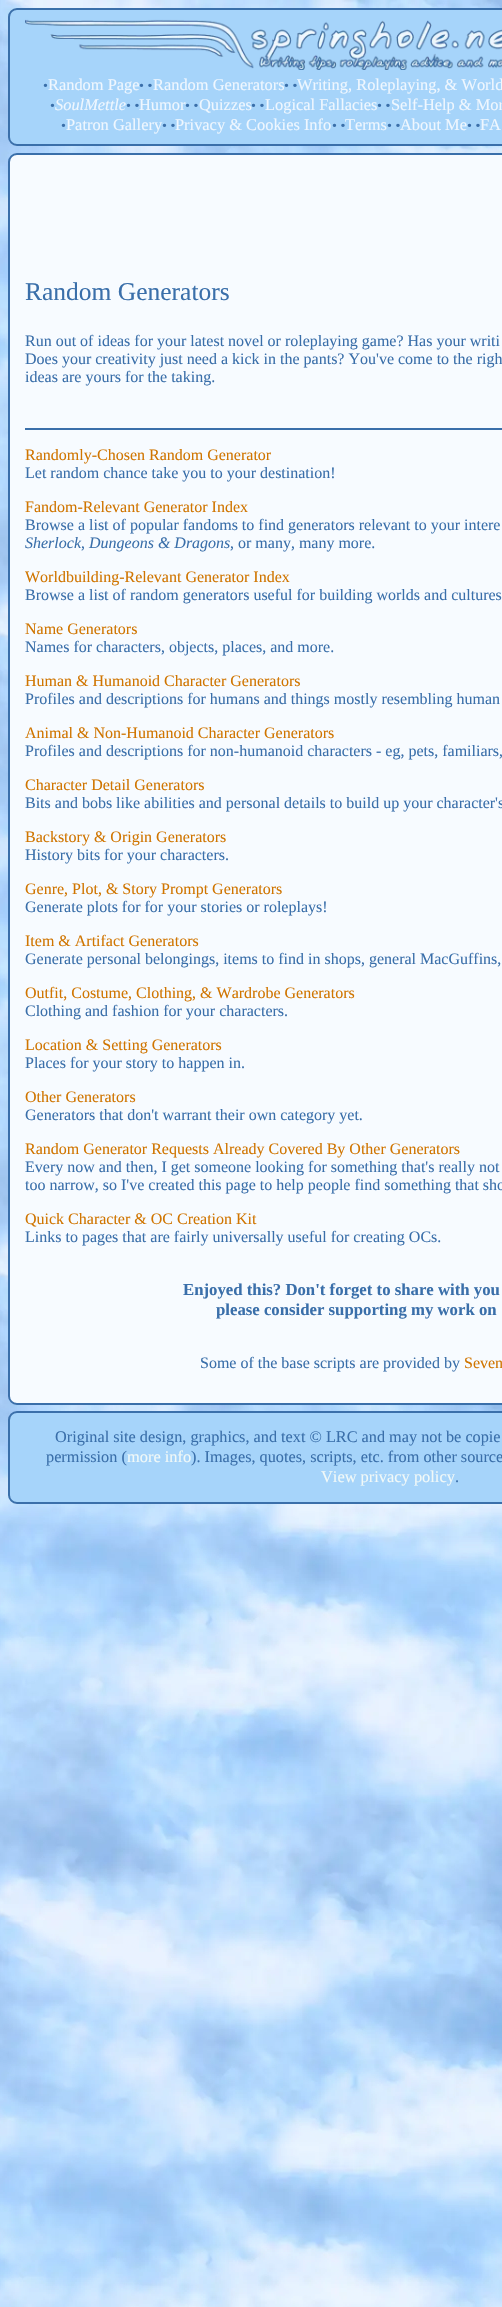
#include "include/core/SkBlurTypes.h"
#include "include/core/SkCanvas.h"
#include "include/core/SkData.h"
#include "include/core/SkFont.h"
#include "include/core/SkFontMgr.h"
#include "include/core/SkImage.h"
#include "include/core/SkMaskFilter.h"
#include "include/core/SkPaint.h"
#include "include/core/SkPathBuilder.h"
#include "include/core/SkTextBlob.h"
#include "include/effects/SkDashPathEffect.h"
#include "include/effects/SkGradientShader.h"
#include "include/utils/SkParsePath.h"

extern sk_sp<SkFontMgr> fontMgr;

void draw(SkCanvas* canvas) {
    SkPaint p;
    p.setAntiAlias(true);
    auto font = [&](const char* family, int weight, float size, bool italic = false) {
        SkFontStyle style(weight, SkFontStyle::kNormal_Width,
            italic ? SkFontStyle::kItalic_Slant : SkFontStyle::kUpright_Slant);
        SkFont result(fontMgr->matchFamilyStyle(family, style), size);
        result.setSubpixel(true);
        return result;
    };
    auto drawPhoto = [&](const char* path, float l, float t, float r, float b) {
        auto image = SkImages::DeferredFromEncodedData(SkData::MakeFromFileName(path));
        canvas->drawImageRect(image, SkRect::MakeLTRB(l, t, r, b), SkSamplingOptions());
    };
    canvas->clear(0xFFFFFFFF);
    drawPhoto("media/1.png", 0, 0, 502, 2307);
    p.setColor(0xFFA6D4FA);
    canvas->drawRoundRect(SkRect::MakeLTRB(9, 9, 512, 145), 8, 8, p);
    p.setStyle(SkPaint::kStroke_Style);
    p.setStrokeWidth(2);
    p.setColor(0xFF3A6FAA);
    canvas->drawRoundRect(SkRect::MakeLTRB(9, 9, 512, 145), 8, 8, p);
    drawPhoto("media/2.png", 25, 19, 502, 70);
    auto font1 = font("Liberation Serif", 400, 14);
    p.setStyle(SkPaint::kFill_Style);
    canvas->drawString("•", 43, 90, font1, p);
    auto font2 = font("Liberation Serif", 400, 16.4f);
    p.setColor(0xFFEFF7FF);
    canvas->drawString("Random Page", 48, 90, font2, p);
    p.setColor(0xFF3A6FAA);
    canvas->drawString("• •", 139, 90, font1, p);
    p.setColor(0xFFEFF7FF);
    canvas->drawString("Random Generators", 153, 90, font2, p);
    p.setColor(0xFF3A6FAA);
    canvas->drawString("• •", 284, 90, font1, p);
    p.setColor(0xFFEFF7FF);
    canvas->drawString("Writing, Roleplaying, & World", 297, 90, font2, p);
    p.setColor(0xFF3A6FAA);
    canvas->drawString("•", 50, 110, font1, p);
    auto font3 = font("Liberation Serif", 400, 16.4f, true);
    p.setColor(0xFFEFF7FF);
    canvas->drawString("SoulMettle", 55, 110, font3, p);
    p.setColor(0xFF3A6FAA);
    canvas->drawString("• •", 126, 110, font1, p);
    p.setColor(0xFFEFF7FF);
    canvas->drawString("Humor", 139, 110, font2, p);
    p.setColor(0xFF3A6FAA);
    canvas->drawString("• •", 185, 110, font1, p);
    p.setColor(0xFFEFF7FF);
    canvas->drawString("Quizzes", 199, 110, font2, p);
    p.setColor(0xFF3A6FAA);
    canvas->drawString("• •", 251, 110, font1, p);
    p.setColor(0xFFEFF7FF);
    canvas->drawString("Logical Fallacies", 265, 110, font2, p);
    p.setColor(0xFF3A6FAA);
    canvas->drawString("• •", 377, 110, font1, p);
    p.setColor(0xFFEFF7FF);
    canvas->drawString("Self-Help & Mor", 391, 110, font2, p);
    p.setColor(0xFF3A6FAA);
    canvas->drawString("•", 61, 130, font1, p);
    p.setColor(0xFFEFF7FF);
    canvas->drawString("Patron Gallery", 66, 130, font2, p);
    p.setColor(0xFF3A6FAA);
    canvas->drawString("• •", 162, 130, font1, p);
    p.setColor(0xFFEFF7FF);
    canvas->drawString("Privacy & Cookies Info", 175, 130, font2, p);
    p.setColor(0xFF3A6FAA);
    canvas->drawString("• •", 332, 130, font1, p);
    p.setColor(0xFFEFF7FF);
    canvas->drawString("Terms", 345, 130, font2, p);
    p.setColor(0xFF3A6FAA);
    canvas->drawString("• •", 387, 130, font1, p);
    p.setColor(0xFFEFF7FF);
    canvas->drawString("About Me", 400, 130, font2, p);
    p.setColor(0xFF3A6FAA);
    canvas->drawString("• •", 467, 130, font1, p);
    p.setColor(0xFFEFF7FF);
    canvas->drawString("FA", 480, 130, font2, p);
    p.setColor(0xFFF7FBFF);
    canvas->drawRoundRect(SkRect::MakeLTRB(9, 154, 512, 1404), 8, 8, p);
    p.setStyle(SkPaint::kStroke_Style);
    p.setColor(0xFF3A6FAA);
    canvas->drawRoundRect(SkRect::MakeLTRB(9, 154, 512, 1404), 8, 8, p);
    auto font4 = font("Liberation Serif", 400, 25.5f);
    p.setStyle(SkPaint::kFill_Style);
    canvas->drawString("Random Generators", 25, 300, font4, p);
    auto font5 = font("Liberation Serif", 400, 16);
    {
        const struct { const char* s; float x, y; } items[] = {
            {"Run out of ideas for your latest novel or roleplaying game? Has your writi", 25, 346},
            {"Does your creativity just need a kick in the pants? You've come to the righ", 25, 364},
            {"ideas are yours for the taking.", 25, 382},
        };
        for (auto [s, x, y] : items) {
            canvas->drawString(s, x, y, font5, p);
        }
    }
    canvas->drawRect(SkRect::MakeLTRB(25, 428, 502, 430), p);
    p.setColor(0xFFD07500);
    canvas->drawString("Randomly-Chosen Random Generator", 25, 460, font5, p);
    p.setColor(0xFF3A6FAA);
    canvas->drawString("Let random chance take you to your destination!", 25, 478, font5, p);
    p.setColor(0xFFD07500);
    canvas->drawString("Fandom-Relevant Generator Index", 25, 512, font5, p);
    p.setColor(0xFF3A6FAA);
    canvas->drawString("Browse a list of popular fandoms to find generators relevant to your intere", 25, 530, font5, p);
    auto font6 = font("Liberation Serif", 400, 16, true);
    canvas->drawString("Sherlock", 25, 548, font6, p);
    canvas->drawString(",", 81, 548, font5, p);
    canvas->drawString("Dungeons & Dragons", 89, 548, font6, p);
    canvas->drawString(", or many, many more.", 230, 548, font5, p);
    p.setColor(0xFFD07500);
    canvas->drawString("Worldbuilding-Relevant Generator Index", 25, 582, font5, p);
    p.setColor(0xFF3A6FAA);
    canvas->drawString("Browse a list of random generators useful for building worlds and cultures", 25, 600, font5, p);
    p.setColor(0xFFD07500);
    canvas->drawString("Name Generators", 25, 634, font5, p);
    p.setColor(0xFF3A6FAA);
    canvas->drawString("Names for characters, objects, places, and more.", 25, 652, font5, p);
    p.setColor(0xFFD07500);
    canvas->drawString("Human & Humanoid Character Generators", 25, 686, font5, p);
    p.setColor(0xFF3A6FAA);
    canvas->drawString("Profiles and descriptions for humans and things mostly resembling human", 25, 704, font5, p);
    p.setColor(0xFFD07500);
    canvas->drawString("Animal & Non-Humanoid Character Generators", 25, 738, font5, p);
    p.setColor(0xFF3A6FAA);
    canvas->drawString("Profiles and descriptions for non-humanoid characters - eg, pets, familiars,", 25, 756, font5, p);
    p.setColor(0xFFD07500);
    canvas->drawString("Character Detail Generators", 25, 790, font5, p);
    p.setColor(0xFF3A6FAA);
    canvas->drawString("Bits and bobs like abilities and personal details to build up your character's", 25, 808, font5, p);
    p.setColor(0xFFD07500);
    canvas->drawString("Backstory & Origin Generators", 25, 842, font5, p);
    p.setColor(0xFF3A6FAA);
    canvas->drawString("History bits for your characters.", 25, 860, font5, p);
    p.setColor(0xFFD07500);
    canvas->drawString("Genre, Plot, & Story Prompt Generators", 25, 894, font5, p);
    p.setColor(0xFF3A6FAA);
    canvas->drawString("Generate plots for for your stories or roleplays!", 25, 912, font5, p);
    p.setColor(0xFFD07500);
    canvas->drawString("Item & Artifact Generators", 25, 946, font5, p);
    p.setColor(0xFF3A6FAA);
    canvas->drawString("Generate personal belongings, items to find in shops, general MacGuffins,", 25, 964, font5, p);
    p.setColor(0xFFD07500);
    canvas->drawString("Outfit, Costume, Clothing, & Wardrobe Generators", 25, 998, font5, p);
    p.setColor(0xFF3A6FAA);
    canvas->drawString("Clothing and fashion for your characters.", 25, 1016, font5, p);
    p.setColor(0xFFD07500);
    canvas->drawString("Location & Setting Generators", 25, 1050, font5, p);
    p.setColor(0xFF3A6FAA);
    canvas->drawString("Places for your story to happen in.", 25, 1068, font5, p);
    p.setColor(0xFFD07500);
    canvas->drawString("Other Generators", 25, 1102, font5, p);
    p.setColor(0xFF3A6FAA);
    canvas->drawString("Generators that don't warrant their own category yet.", 25, 1120, font5, p);
    p.setColor(0xFFD07500);
    canvas->drawString("Random Generator Requests Already Covered By Other Generators", 25, 1154, font5, p);
    p.setColor(0xFF3A6FAA);
    canvas->drawString("Every now and then, I get someone looking for something that's really not", 25, 1172, font5, p);
    canvas->drawString("too narrow, so I've created this page to help people find something that sho", 25, 1190, font5, p);
    p.setColor(0xFFD07500);
    canvas->drawString("Quick Character & OC Creation Kit", 25, 1224, font5, p);
    p.setColor(0xFF3A6FAA);
    canvas->drawString("Links to pages that are fairly universally useful for creating OCs.", 25, 1242, font5, p);
    auto font7 = font("Liberation Serif", 700, 16.75f);
    canvas->drawString("Enjoyed this? Don't forget to share with you", 183, 1295, font7, p);
    canvas->drawString("please consider supporting my work on", 216, 1315, font7, p);
    canvas->drawString("Some of the base scripts are provided by", 200, 1368, font5, p);
    p.setColor(0xFFD07500);
    canvas->drawString("Seven", 464, 1368, font5, p);
    p.setColor(0xFFA6D4FA);
    canvas->drawRoundRect(SkRect::MakeLTRB(9, 1412, 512, 1503), 8, 8, p);
    p.setStyle(SkPaint::kStroke_Style);
    p.setColor(0xFF3A6FAA);
    canvas->drawRoundRect(SkRect::MakeLTRB(9, 1412, 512, 1503), 8, 8, p);
    auto font8 = font("Liberation Serif", 400, 16.25f);
    p.setStyle(SkPaint::kFill_Style);
    canvas->drawString("Original site design, graphics, and text © LRC and may not be copie", 55, 1442, font8, p);
    canvas->drawString("permission (", 46, 1462, font8, p);
    p.setColor(0xFFF1F9F8);
    canvas->drawString("more info", 127, 1462, font2, p);
    p.setColor(0xFF3A6FAA);
    canvas->drawString("). Images, quotes, scripts, etc. from other source", 191, 1462, font8, p);
    p.setColor(0xFFF1F9F8);
    canvas->drawString("View privacy policy", 321, 1482, font2, p);
    p.setColor(0xFF3A6FAA);
    canvas->drawString(".", 455, 1482, font8, p);
}
